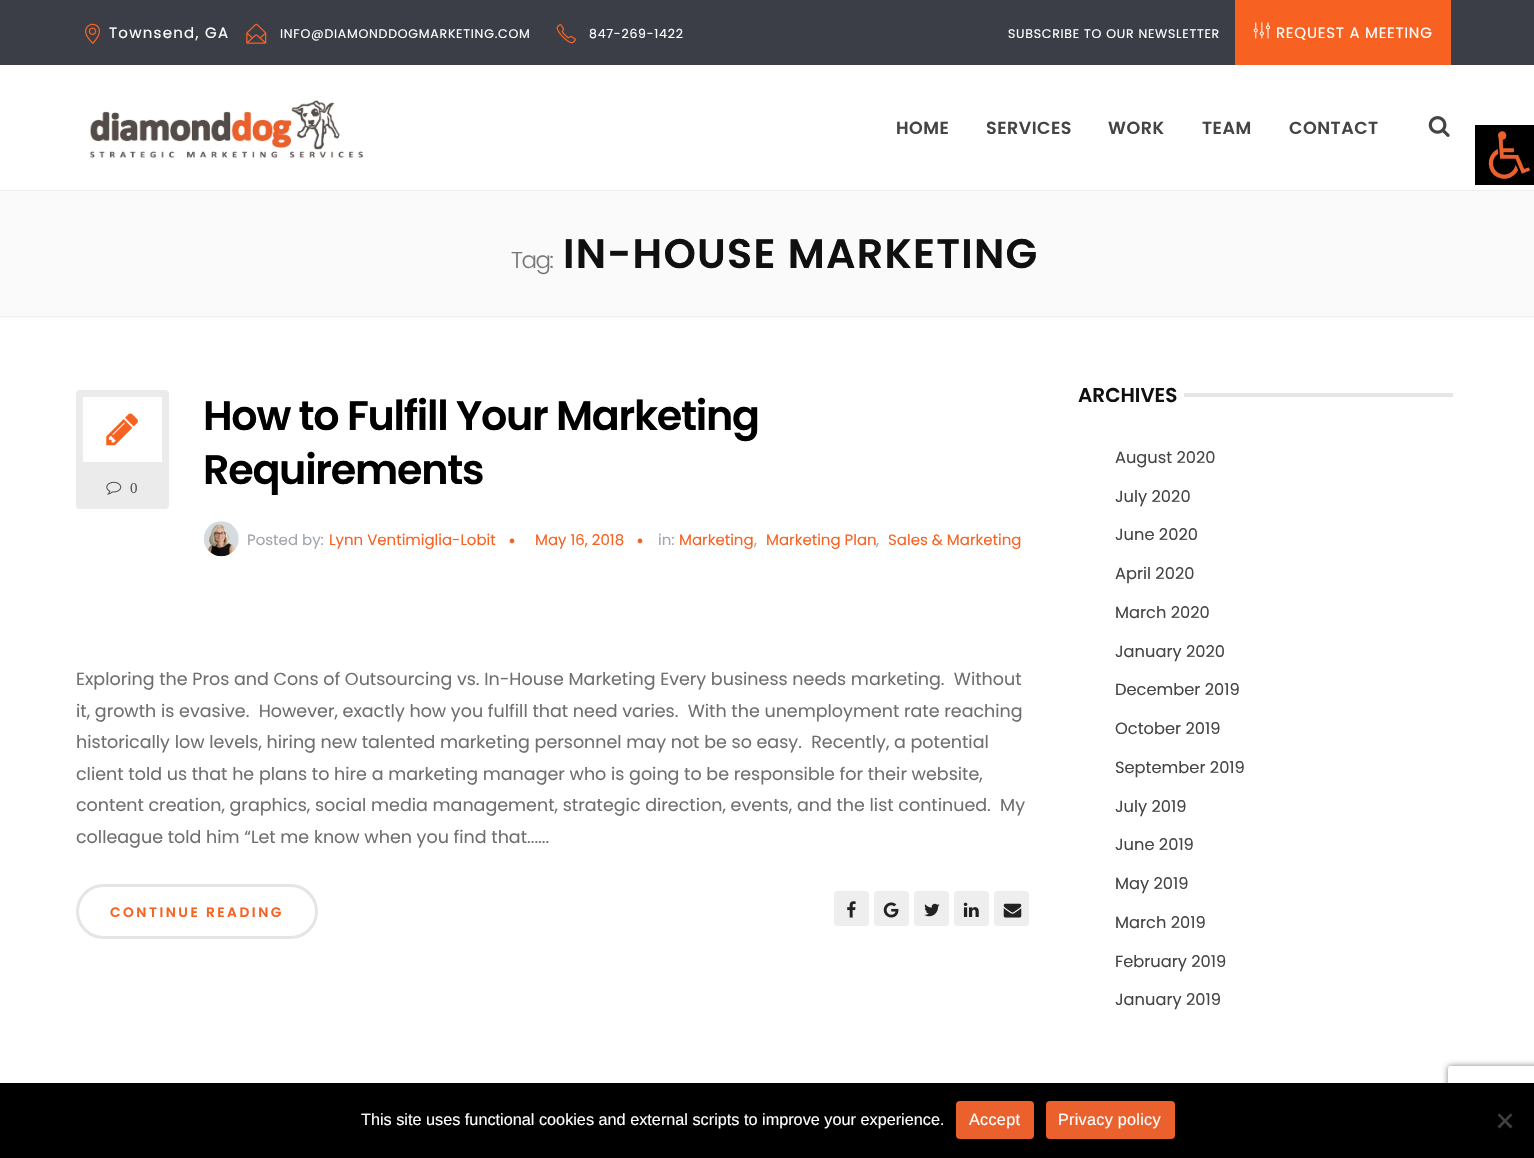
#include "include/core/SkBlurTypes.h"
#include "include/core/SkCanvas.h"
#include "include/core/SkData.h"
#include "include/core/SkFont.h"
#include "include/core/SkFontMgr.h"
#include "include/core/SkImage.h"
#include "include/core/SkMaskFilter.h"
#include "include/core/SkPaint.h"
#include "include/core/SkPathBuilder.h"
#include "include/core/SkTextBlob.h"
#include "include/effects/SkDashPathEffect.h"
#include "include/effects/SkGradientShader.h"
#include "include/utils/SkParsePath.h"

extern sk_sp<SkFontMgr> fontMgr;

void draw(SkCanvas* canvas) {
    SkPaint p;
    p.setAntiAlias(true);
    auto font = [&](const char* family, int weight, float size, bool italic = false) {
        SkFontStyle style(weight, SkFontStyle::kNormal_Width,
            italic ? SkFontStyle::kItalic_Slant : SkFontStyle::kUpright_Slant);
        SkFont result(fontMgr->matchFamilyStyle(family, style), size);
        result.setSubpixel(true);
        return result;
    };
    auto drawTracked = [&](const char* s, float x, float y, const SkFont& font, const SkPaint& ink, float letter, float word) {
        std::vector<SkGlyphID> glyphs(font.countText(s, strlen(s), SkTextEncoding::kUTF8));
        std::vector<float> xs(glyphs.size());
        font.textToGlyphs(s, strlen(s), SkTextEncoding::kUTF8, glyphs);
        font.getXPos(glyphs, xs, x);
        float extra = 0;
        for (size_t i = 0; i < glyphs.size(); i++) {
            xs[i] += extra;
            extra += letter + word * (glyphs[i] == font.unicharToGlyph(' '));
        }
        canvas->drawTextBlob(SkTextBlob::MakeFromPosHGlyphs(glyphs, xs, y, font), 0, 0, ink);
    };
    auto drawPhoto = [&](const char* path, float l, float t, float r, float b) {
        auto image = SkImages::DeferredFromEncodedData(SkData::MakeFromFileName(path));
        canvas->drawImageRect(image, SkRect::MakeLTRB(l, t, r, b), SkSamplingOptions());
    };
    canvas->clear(0xFFFFFFFF);
    p.setColor(0xFF3B3E46);
    canvas->drawRect(SkRect::MakeLTRB(0, 0, 1534, 65), p);
    drawPhoto("media/1.png", 85, 23, 100, 44);
    auto font1 = font("Poppins", 400, 15);
    p.setColor(0xFFFFFFFF);
    drawTracked("Townsend, GA", 109, 38, font1, p, 1.25f, 0);
    drawPhoto("media/2.png", 246, 23, 267, 44);
    auto font2 = font("Poppins", 400, 12.5f);
    drawTracked("INFO@DIAMONDDOGMARKETING.COM", 280, 38, font2, p, 0.75f, 0);
    drawPhoto("media/3.png", 556, 24, 576, 44);
    drawTracked("847-269-1422", 589, 38, font2, p, 0.75f, 0);
    drawTracked("SUBSCRIBE TO OUR NEWSLETTER", 1008, 38, font2, p, 0.75f, 0);
    p.setColor(0xFFF76122);
    canvas->drawRect(SkRect::MakeLTRB(1235, 0, 1451, 65), p);
    drawPhoto("media/4.png", 1253, 22, 1270, 39);
    p.setColor(0xFFFFFFFF);
    drawTracked("REQUEST A MEETING", 1276, 38, font1, p, 0.75f, 0);
    drawPhoto("media/5.png", 89, 100, 364, 159);
    auto font3 = font("Poppins", 600, 17.5f);
    p.setColor(0xFF444444);
    {
        const struct { const char* s; float x, y; } items[] = {
            {"HOME", 896, 134},
            {"SERVICES", 986, 134},
            {"WORK", 1108, 134},
            {"TEAM", 1202, 134},
            {"CONTACT", 1289, 134},
        };
        for (auto [s, x, y] : items) {
            drawTracked(s, x, y, font3, p, 0.5f, 0);
        }
    }
    drawPhoto("media/6.png", 1428, 116, 1450, 137);
    {
        const struct { float l, t, r, b; SkColor color; } items[] = {
            {0, 191, 1534, 318, 0xFFFAFAFA},
            {0, 190, 1534, 191, 0xFFEEEEEE},
            {0, 316, 1534, 317, 0xFFEEEEEE},
        };
        for (auto [l, t, r, b, color] : items) {
            p.setColor(color);
            canvas->drawRect(SkRect::MakeLTRB(l, t, r, b), p);
        }
    }
    auto font4 = font("Poppins", 300, 23);
    p.setColor(0xFF777777);
    drawTracked("Tag:", 511, 268, font4, p, -1.5f, 0);
    auto font5 = font("Poppins", 600, 41.25f);
    p.setColor(0xFF101010);
    drawTracked("IN-HOUSE MARKETING", 563, 268, font5, p, 1.25f, 0);
    p.setColor(0xFFEBEBEB);
    canvas->drawRoundRect(SkRect::MakeLTRB(76, 390, 169, 509), 4, 4, p);
    p.setColor(0xFFFFFFFF);
    canvas->drawRect(SkRect::MakeLTRB(83, 397, 162, 462), p);
    drawPhoto("media/7.png", 106, 413, 138, 446);
    drawPhoto("media/8.png", 106, 481, 122, 495);
    auto font6 = font("Liberation Serif", 400, 15);
    p.setColor(0xFF555555);
    canvas->drawString("0", 130, 493, font6, p);
    p.setColor(0xFF000000);
    drawTracked("How to Fulfill Your Marketing", 203, 430, font5, p, -1.25f, 0);
    drawTracked("Requirements", 203, 484, font5, p, -1.25f, 0);
    drawPhoto("media/9.png", 204, 521, 239, 557);
    p.setColor(0xFFA1A5AD);
    canvas->drawString("Posted by:", 247, 545, font1, p);
    p.setColor(0xFFF76122);
    canvas->drawString("Lynn Ventimiglia-Lobit", 329, 545, font1, p);
    auto font7 = font("Poppins", 400, 38);
    canvas->drawString(".", 508, 543, font7, p);
    canvas->drawString("May 16, 2018", 535, 545, font1, p);
    canvas->drawString(".", 636, 543, font7, p);
    p.setColor(0xFFA1A5AD);
    canvas->drawString("in:", 658, 545, font1, p);
    p.setColor(0xFFF76122);
    canvas->drawString("Marketing", 679, 545, font1, p);
    p.setColor(0xFFA1A5AD);
    canvas->drawString(",", 754, 545, font1, p);
    p.setColor(0xFFF76122);
    canvas->drawString("Marketing Plan", 766, 545, font1, p);
    p.setColor(0xFFA1A5AD);
    canvas->drawString(",", 876, 545, font1, p);
    p.setColor(0xFFF76122);
    canvas->drawString("Sales & Marketing", 888, 545, font1, p);
    auto font8 = font("Poppins", 400, 17.5f);
    p.setColor(0xFF6F6F6F);
    {
        const struct { const char* s; float x, y; } items[] = {
            {"Exploring the Pros and Cons of Outsourcing vs. In-House Marketing Every business needs marketing.  Without", 76, 685},
            {"it, growth is evasive.  However, exactly how you fulfill that need varies.  With the unemployment rate reaching", 76, 717},
            {"historically low levels, hiring new talented marketing personnel may not be so easy.  Recently, a potential", 76, 748},
            {"client told us that he plans to hire a marketing manager who is going to be responsible for their website,", 76, 780},
            {"content creation, graphics, social media management, strategic direction, events, and the list continued.  My", 76, 811},
            {"colleague told him “Let me know when you find that......", 76, 843},
        };
        for (auto [s, x, y] : items) {
            canvas->drawString(s, x, y, font8, p);
        }
    }
    p.setStyle(SkPaint::kStroke_Style);
    p.setStrokeWidth(3);
    p.setColor(0xFFE5E5E5);
    canvas->drawRoundRect(SkRect::MakeLTRB(77.5f, 885.5f, 316.5f, 937.5f), 26, 26, p);
    auto font9 = font("Poppins", 600, 13.75f);
    p.setStyle(SkPaint::kFill_Style);
    p.setColor(0xFFF76122);
    drawTracked("CONTINUE READING", 110, 917, font9, p, 2.5f, 0);
    p.setColor(0xFFEEEEEE);
    canvas->drawRoundRect(SkRect::MakeLTRB(834, 891, 869, 926), 4, 4, p);
    drawPhoto("media/10.png", 847, 901, 856, 918);
    canvas->drawRoundRect(SkRect::MakeLTRB(874, 891, 909, 926), 4, 4, p);
    drawPhoto("media/11.png", 883, 902, 899, 918);
    canvas->drawRoundRect(SkRect::MakeLTRB(914, 891, 949, 926), 4, 4, p);
    drawPhoto("media/12.png", 924, 903, 940, 917);
    canvas->drawRoundRect(SkRect::MakeLTRB(954, 891, 989, 926), 4, 4, p);
    drawPhoto("media/13.png", 963, 902, 979, 917);
    canvas->drawRoundRect(SkRect::MakeLTRB(994, 891, 1029, 926), 4, 4, p);
    drawPhoto("media/14.png", 1003, 903, 1022, 918);
    auto font10 = font("Poppins", 600, 20);
    p.setColor(0xFF101010);
    canvas->drawString("ARCHIVES", 1078, 402, font10, p);
    p.setColor(0xFFE6E6E6);
    canvas->drawRect(SkRect::MakeLTRB(1184, 393, 1453, 397), p);
    auto font11 = font("Poppins", 400, 16.25f);
    p.setColor(0xFF444444);
    {
        const struct { const char* s; float x, y; } items[] = {
            {"August 2020", 1115, 463},
            {"July 2020", 1115, 502},
            {"June 2020", 1115, 540},
            {"April 2020", 1115, 579},
            {"March 2020", 1115, 618},
            {"January 2020", 1115, 657},
            {"December 2019", 1115, 695},
            {"October 2019", 1115, 734},
            {"September 2019", 1115, 773},
            {"July 2019", 1115, 812},
            {"June 2019", 1115, 850},
            {"May 2019", 1115, 889},
            {"March 2019", 1115, 928},
            {"February 2019", 1115, 967},
            {"January 2019", 1115, 1005},
        };
        for (auto [s, x, y] : items) {
            canvas->drawString(s, x, y, font11, p);
        }
    }
    drawPhoto("media/15.png", 1475, 125, 1534, 185);
    canvas->save();
    canvas->clipPath(SkPathBuilder(SkPathFillType::kEvenOdd).moveTo(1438, 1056).lineTo(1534, 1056).lineTo(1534, 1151).lineTo(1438, 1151).close().moveTo(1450.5f, 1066).lineTo(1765.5f, 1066).cubicTo(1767, 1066, 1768, 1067, 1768, 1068.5f).lineTo(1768, 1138.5f).cubicTo(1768, 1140, 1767, 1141, 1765.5f, 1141).lineTo(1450.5f, 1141).cubicTo(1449, 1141, 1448, 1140, 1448, 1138.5f).lineTo(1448, 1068.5f).cubicTo(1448, 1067, 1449, 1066, 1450.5f, 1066).close().detach(), true);
    p.setColor(0xFF808080);
    p.setMaskFilter(SkMaskFilter::MakeBlur(kNormal_SkBlurStyle, 3));
    canvas->drawRoundRect(SkRect::MakeLTRB(1448, 1066, 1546, 1141), 2.5f, 2.5f, p);
    p.setMaskFilter(nullptr);
    canvas->restore();
    p.setColor(0xFF000000);
    canvas->drawRect(SkRect::MakeLTRB(0, 1083, 1534, 1158), p);
    auto font12 = font("Liberation Sans", 400, 16.25f);
    p.setColor(0xFFFFFFFF);
    canvas->drawString("This site uses functional cookies and external scripts to improve your experience.", 361, 1125, font12, p);
    p.setColor(0xFFEA612D);
    canvas->drawRoundRect(SkRect::MakeLTRB(956, 1101, 1034, 1139), 4, 4, p);
    p.setColor(0xFFFFFFFF);
    drawTracked("Accept", 969, 1125, font12, p, 0.25f, 0);
    p.setColor(0xFFEA612D);
    canvas->drawRoundRect(SkRect::MakeLTRB(1046, 1101, 1175, 1139), 4, 4, p);
    p.setColor(0xFFFFFFFF);
    drawTracked("Privacy policy", 1058, 1125, font12, p, 0.25f, 0);
    p.setColor(0xFF404040);
    canvas->drawPath(SkPathBuilder().moveTo(1510.5f, 1113.5f).lineTo(1512.5f, 1115).lineTo(1499.5f, 1128.5f).lineTo(1497.5f, 1126.5f).close().detach(), p);
    canvas->drawPath(SkPathBuilder().moveTo(1497.5f, 1115).lineTo(1499.5f, 1113.5f).lineTo(1512.5f, 1126.5f).lineTo(1510.5f, 1128.5f).close().detach(), p);
}
